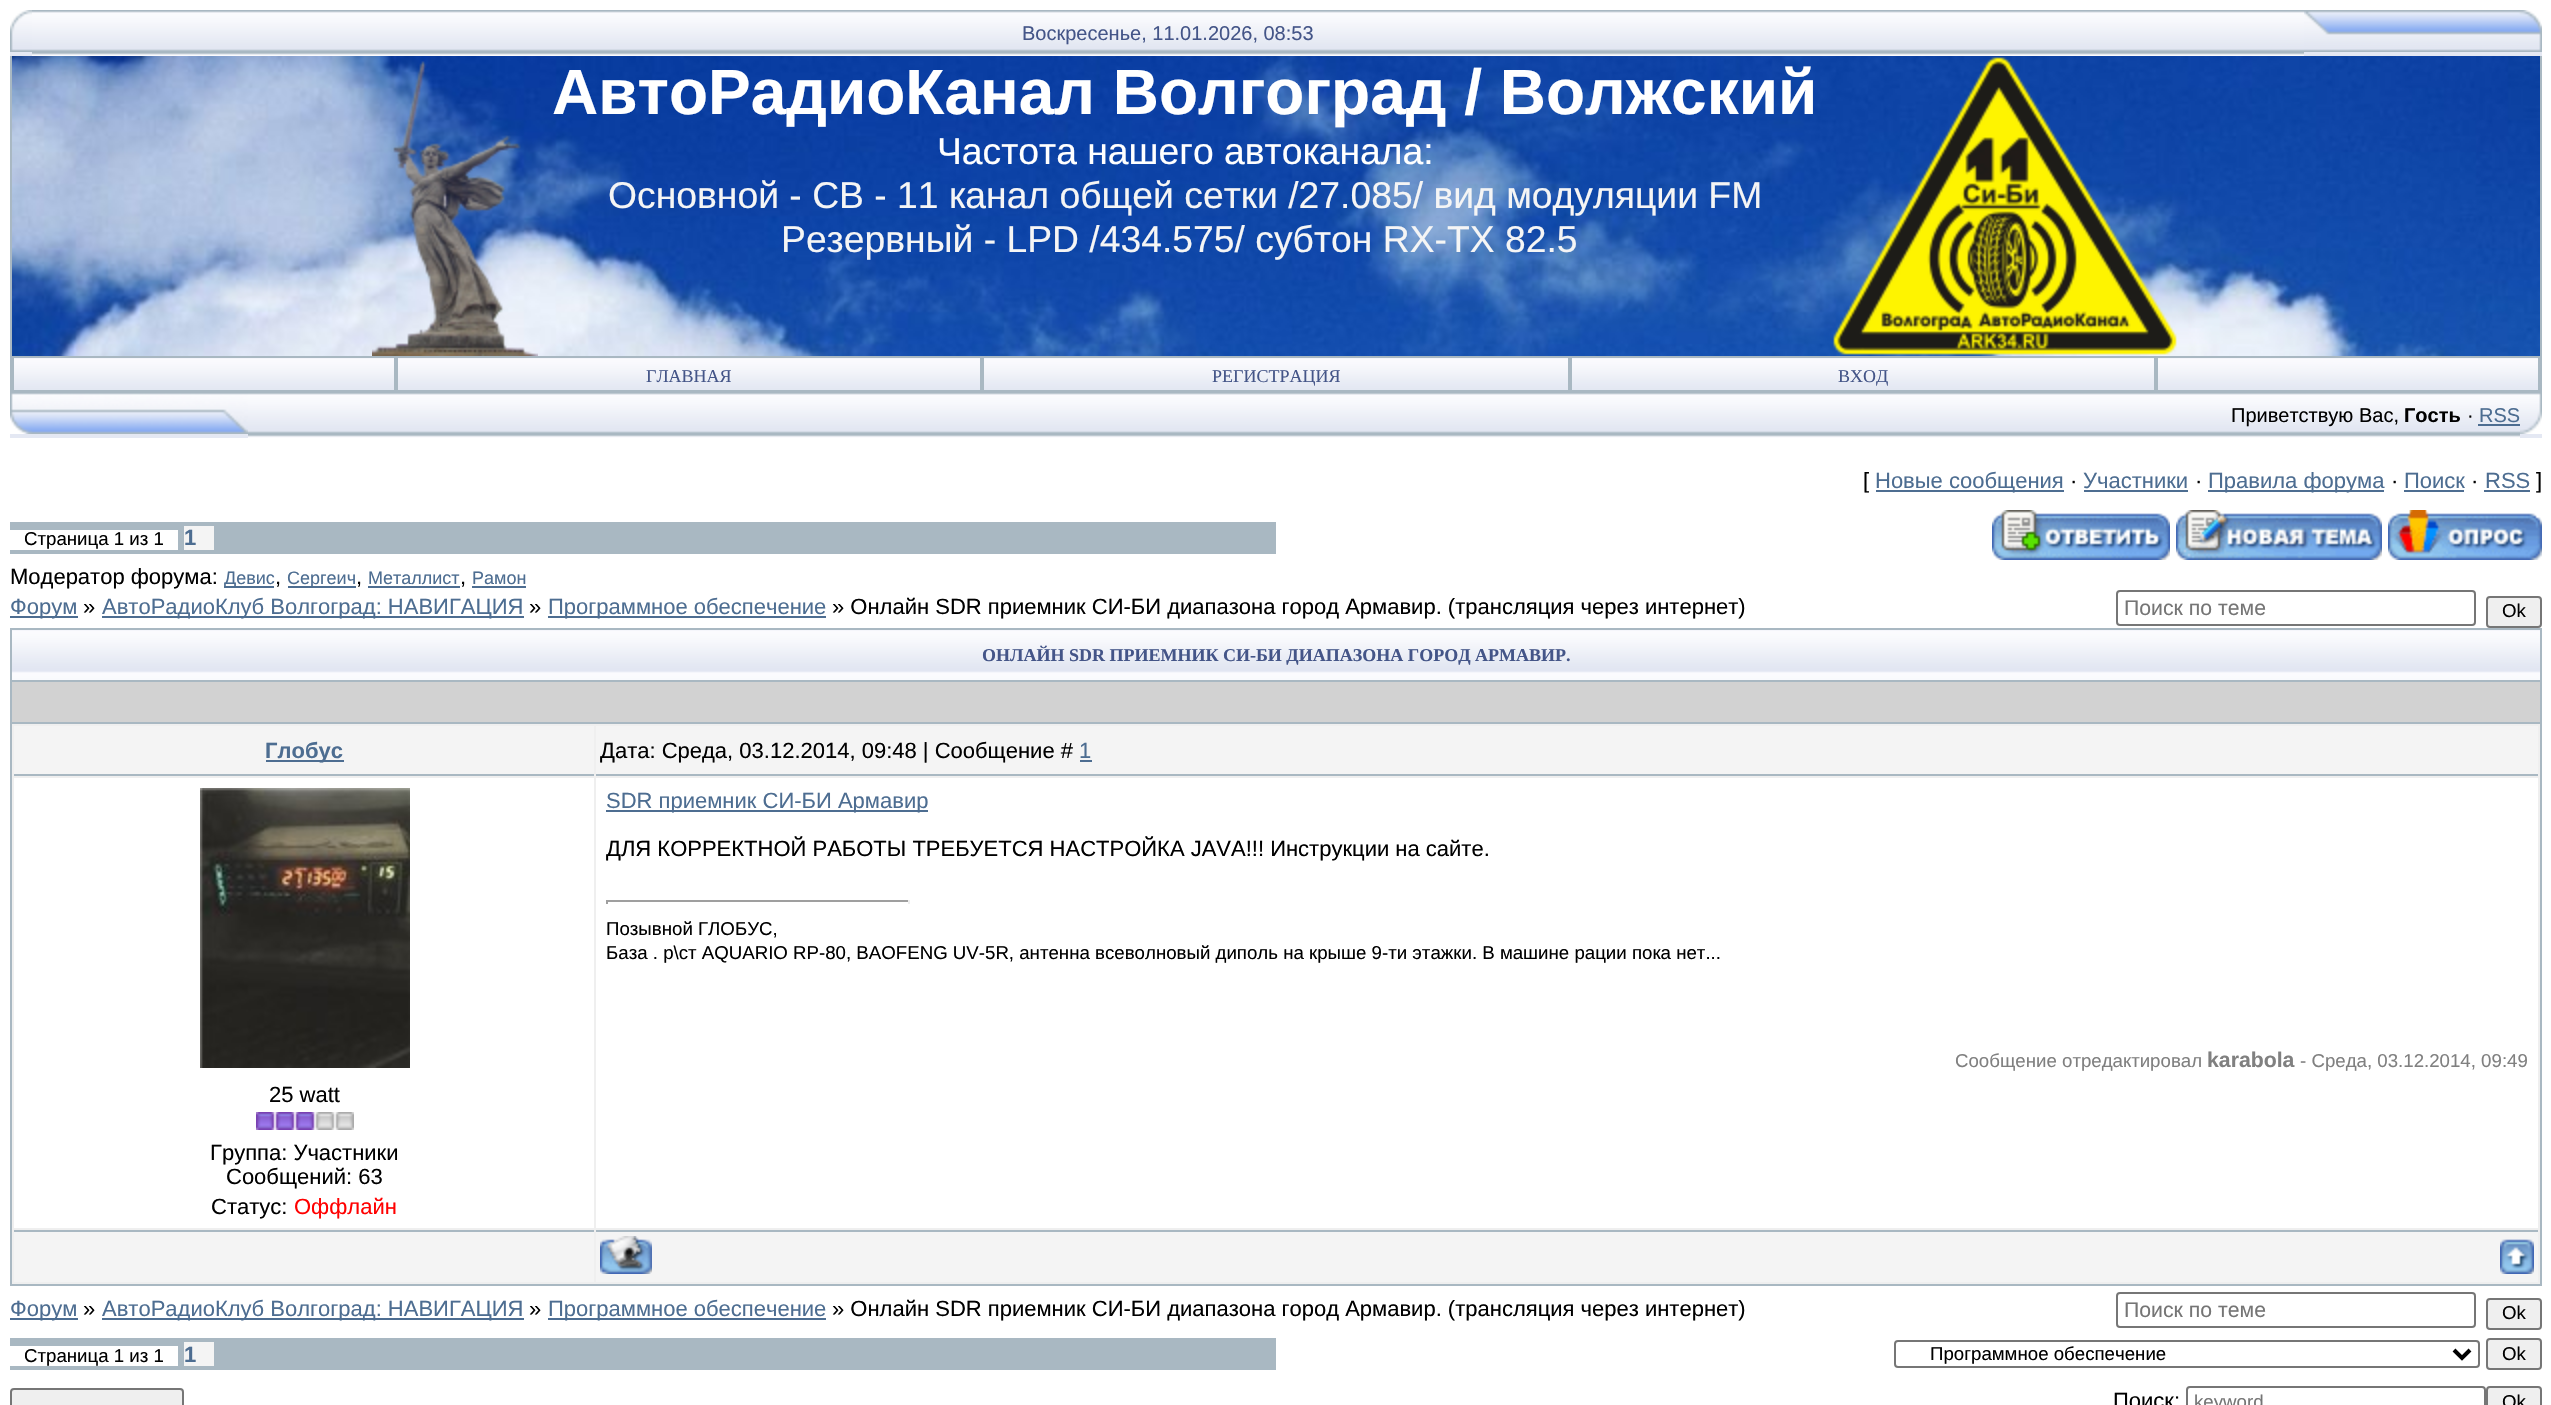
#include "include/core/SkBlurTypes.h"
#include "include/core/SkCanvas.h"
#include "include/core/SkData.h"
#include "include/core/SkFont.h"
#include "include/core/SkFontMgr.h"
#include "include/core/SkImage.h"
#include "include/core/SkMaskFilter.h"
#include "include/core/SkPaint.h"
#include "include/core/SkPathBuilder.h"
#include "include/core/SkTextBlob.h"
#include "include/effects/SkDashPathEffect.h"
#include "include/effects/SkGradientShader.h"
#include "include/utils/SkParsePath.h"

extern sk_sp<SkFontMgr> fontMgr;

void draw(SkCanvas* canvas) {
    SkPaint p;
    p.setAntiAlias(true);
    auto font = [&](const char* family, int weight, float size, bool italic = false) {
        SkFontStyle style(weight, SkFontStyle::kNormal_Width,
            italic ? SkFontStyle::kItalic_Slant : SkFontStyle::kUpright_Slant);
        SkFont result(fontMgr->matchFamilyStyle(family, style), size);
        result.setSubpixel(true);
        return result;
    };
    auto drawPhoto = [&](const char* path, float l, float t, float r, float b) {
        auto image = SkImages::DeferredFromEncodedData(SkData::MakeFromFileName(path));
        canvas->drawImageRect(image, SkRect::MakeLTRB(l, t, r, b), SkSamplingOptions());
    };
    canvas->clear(0xFFFFFFFF);
    p.setColor(0xFFE4E8F3);
    canvas->drawRect(SkRect::MakeLTRB(10, 52, 32, 56), p);
    drawPhoto("media/1.png", 10, 10, 32, 52);
    drawPhoto("media/2.png", 32, 10, 2304, 56);
    auto font1 = font("Liberation Sans", 400, 20);
    p.setColor(0xFF445588);
    canvas->drawString("Воскресенье, 11.01.2026, 08:53", 1022, 40, font1, p);
    p.setColor(0xFFE4E8F3);
    canvas->drawRect(SkRect::MakeLTRB(2304, 52, 2542, 56), p);
    drawPhoto("media/3.png", 2304, 10, 2542, 52);
    p.setColor(0xFFA9B8C2);
    canvas->drawRect(SkRect::MakeLTRB(2540, 56, 2542, 392), p);
    canvas->drawRect(SkRect::MakeLTRB(10, 56, 12, 392), p);
    drawPhoto("media/4.png", 12, 56, 2540, 356);
    drawPhoto("media/5.png", 372, 61, 538, 356);
    auto font2 = font("Liberation Sans", 700, 64);
    p.setColor(0xFFFFFFFF);
    canvas->drawString("АвтоРадиоКанал Волгоград / Волжский", 552, 114, font2, p);
    auto font3 = font("Liberation Sans", 400, 37.3f);
    canvas->drawString("Частота нашего автоканала:", 937, 164, font3, p);
    p.setColor(0xFFF5F5F5);
    canvas->drawString("Основной - СВ - 11 канал общей сетки /27.085/ вид модуляции FM", 608, 208, font3, p);
    canvas->drawString("Резервный - LPD /434.575/ субтон RX-TX 82.5", 781, 252, font3, p);
    drawPhoto("media/6.png", 1833, 57, 2177, 355);
    drawPhoto("media/7.png", 14, 358, 394, 390);
    p.setStyle(SkPaint::kStroke_Style);
    p.setStrokeWidth(2);
    p.setColor(0xFFA9B8C2);
    canvas->drawRect(SkRect::MakeLTRB(13, 357, 395, 391), p);
    drawPhoto("media/8.png", 398, 358, 980, 390);
    canvas->drawRect(SkRect::MakeLTRB(397, 357, 981, 391), p);
    auto font4 = font("Liberation Serif", 400, 18);
    p.setStyle(SkPaint::kFill_Style);
    p.setColor(0xFF445588);
    canvas->drawString("ГЛАВНАЯ", 646, 382, font4, p);
    drawPhoto("media/9.png", 984, 358, 1568, 390);
    p.setStyle(SkPaint::kStroke_Style);
    p.setColor(0xFFA9B8C2);
    canvas->drawRect(SkRect::MakeLTRB(983, 357, 1569, 391), p);
    p.setStyle(SkPaint::kFill_Style);
    p.setColor(0xFF445588);
    canvas->drawString("РЕГИСТРАЦИЯ", 1212, 382, font4, p);
    drawPhoto("media/8.png", 1572, 358, 2154, 390);
    p.setStyle(SkPaint::kStroke_Style);
    p.setColor(0xFFA9B8C2);
    canvas->drawRect(SkRect::MakeLTRB(1571, 357, 2155, 391), p);
    p.setStyle(SkPaint::kFill_Style);
    p.setColor(0xFF445588);
    canvas->drawString("ВХОД", 1838, 382, font4, p);
    drawPhoto("media/7.png", 2158, 358, 2538, 390);
    p.setStyle(SkPaint::kStroke_Style);
    p.setColor(0xFFA9B8C2);
    canvas->drawRect(SkRect::MakeLTRB(2157, 357, 2539, 391), p);
    p.setStyle(SkPaint::kFill_Style);
    p.setColor(0xFFE4E8F3);
    canvas->drawRect(SkRect::MakeLTRB(10, 434, 248, 438), p);
    drawPhoto("media/10.png", 10, 392, 248, 434);
    drawPhoto("media/2.png", 248, 392, 2520, 438);
    p.setColor(0xFF000000);
    canvas->drawString("Приветствую Вас,", 2231, 422, font1, p);
    auto font5 = font("Liberation Sans", 700, 20);
    canvas->drawString("Гость", 2404, 422, font5, p);
    canvas->drawString("·", 2467, 422, font1, p);
    p.setColor(0xFF4D6D91);
    canvas->drawString("RSS", 2479, 422, font1, p);
    canvas->drawRect(SkRect::MakeLTRB(2478, 424, 2520, 426), p);
    p.setColor(0xFFE4E8F3);
    canvas->drawRect(SkRect::MakeLTRB(2520, 434, 2542, 438), p);
    drawPhoto("media/11.png", 2520, 392, 2542, 434);
    auto font6 = font("Liberation Sans", 400, 22);
    p.setColor(0xFF000000);
    canvas->drawString("[", 1863, 488, font6, p);
    p.setColor(0xFF4D6D91);
    canvas->drawRect(SkRect::MakeLTRB(1876, 490, 2064, 492), p);
    canvas->drawString("Новые сообщения", 1875, 488, font6, p);
    p.setColor(0xFF000000);
    canvas->drawString("·", 2070, 488, font6, p);
    p.setColor(0xFF4D6D91);
    canvas->drawString("Участники", 2083, 488, font6, p);
    canvas->drawRect(SkRect::MakeLTRB(2084, 490, 2188, 492), p);
    p.setColor(0xFF000000);
    canvas->drawString("·", 2195, 488, font6, p);
    p.setColor(0xFF4D6D91);
    canvas->drawRect(SkRect::MakeLTRB(2208, 490, 2384, 492), p);
    canvas->drawString("Правила форума", 2208, 488, font6, p);
    p.setColor(0xFF000000);
    canvas->drawString("·", 2391, 488, font6, p);
    p.setColor(0xFF4D6D91);
    canvas->drawString("Поиск", 2404, 488, font6, p);
    canvas->drawRect(SkRect::MakeLTRB(2404, 490, 2464, 492), p);
    p.setColor(0xFF000000);
    canvas->drawString("·", 2471, 488, font6, p);
    p.setColor(0xFF4D6D91);
    canvas->drawString("RSS", 2485, 488, font6, p);
    canvas->drawRect(SkRect::MakeLTRB(2484, 490, 2530, 492), p);
    p.setColor(0xFF000000);
    canvas->drawString("]", 2536, 488, font6, p);
    p.setColor(0xFFA9B8C2);
    canvas->drawRect(SkRect::MakeLTRB(10, 522, 1276, 554), p);
    p.setColor(0xFFFFFFFF);
    canvas->drawRect(SkRect::MakeLTRB(10, 530, 178, 550), p);
    auto font7 = font("Liberation Sans", 400, 18.67f);
    p.setColor(0xFF000000);
    canvas->drawString("Страница 1 из 1", 24, 545, font7, p);
    p.setColor(0xFFF4F4F4);
    canvas->drawRect(SkRect::MakeLTRB(184, 526, 214, 550), p);
    auto font8 = font("Liberation Sans", 700, 22);
    p.setColor(0xFF4D6D91);
    canvas->drawString("1", 184, 545, font8, p);
    drawPhoto("media/12.png", 1992, 510, 2170, 560);
    drawPhoto("media/13.png", 2176, 510, 2382, 560);
    drawPhoto("media/14.png", 2388, 510, 2542, 560);
    p.setColor(0xFF000000);
    canvas->drawString("Модератор форума:", 10, 584, font6, p);
    p.setColor(0xFF4D6D91);
    canvas->drawRect(SkRect::MakeLTRB(224, 586, 274, 588), p);
    auto font9 = font("Liberation Sans", 400, 18);
    canvas->drawString("Девис", 224, 584, font9, p);
    p.setColor(0xFF000000);
    canvas->drawString(",", 275, 584, font6, p);
    p.setColor(0xFF4D6D91);
    canvas->drawRect(SkRect::MakeLTRB(288, 586, 356, 588), p);
    canvas->drawString("Сергеич", 287, 584, font9, p);
    p.setColor(0xFF000000);
    canvas->drawString(",", 356, 584, font6, p);
    p.setColor(0xFF4D6D91);
    canvas->drawString("Металлист", 368, 584, font9, p);
    p.setColor(0xFF000000);
    canvas->drawString(",", 460, 584, font6, p);
    p.setColor(0xFF4D6D91);
    canvas->drawRect(SkRect::MakeLTRB(368, 586, 460, 588), p);
    canvas->drawRect(SkRect::MakeLTRB(472, 586, 526, 588), p);
    canvas->drawString("Рамон", 472, 584, font9, p);
    canvas->drawRect(SkRect::MakeLTRB(10, 616, 78, 618), p);
    canvas->drawString("Форум", 10, 614, font6, p);
    p.setColor(0xFF000000);
    canvas->drawString("»", 83, 614, font6, p);
    p.setColor(0xFF4D6D91);
    canvas->drawRect(SkRect::MakeLTRB(102, 616, 524, 618), p);
    canvas->drawString("АвтоРадиоКлуб Волгоград: НАВИГАЦИЯ", 102, 614, font6, p);
    p.setColor(0xFF000000);
    canvas->drawString("»", 529, 614, font6, p);
    p.setColor(0xFF4D6D91);
    canvas->drawRect(SkRect::MakeLTRB(548, 616, 826, 618), p);
    canvas->drawString("Программное обеспечение", 548, 614, font6, p);
    p.setColor(0xFF000000);
    canvas->drawString("» Онлайн SDR приемник СИ-БИ диапазона город Армавир. (трансляция через интернет)", 832, 614, font6, p);
    p.setStyle(SkPaint::kStroke_Style);
    p.setColor(0xFF767676);
    canvas->drawRoundRect(SkRect::MakeLTRB(2117, 591, 2475, 625), 3, 3, p);
    auto font10 = font("Liberation Sans", 400, 21.25f);
    p.setStyle(SkPaint::kFill_Style);
    p.setColor(0xFF757575);
    canvas->drawString("Поиск по теме", 2124, 615, font10, p);
    p.setColor(0xFFEFEFEF);
    canvas->drawRoundRect(SkRect::MakeLTRB(2487, 597, 2541, 627), 3, 3, p);
    p.setStyle(SkPaint::kStroke_Style);
    p.setColor(0xFF767676);
    canvas->drawRoundRect(SkRect::MakeLTRB(2487, 597, 2541, 627), 3, 3, p);
    p.setStyle(SkPaint::kFill_Style);
    p.setColor(0xFF000000);
    canvas->drawString("Ok", 2502, 617, font7, p);
    p.setColor(0xFFA9B8C2);
    canvas->drawRect(SkRect::MakeLTRB(10, 628, 2542, 1286), p);
    drawPhoto("media/15.png", 12, 630, 2540, 680);
    auto font11 = font("Liberation Serif", 700, 18);
    p.setColor(0xFF445588);
    canvas->drawString("ОНЛАЙН SDR ПРИЕМНИК СИ-БИ ДИАПАЗОНА ГОРОД АРМАВИР.", 982, 661, font11, p);
    {
        const struct { float l, t, r, b; SkColor color; } items[] = {
            {12, 682, 2540, 722, 0xFFD2D2D2},
            {12, 724, 2540, 1284, 0xFFEFEFEF},
            {14, 726, 594, 774, 0xFFF4F4F4},
            {14, 774, 594, 776, 0xFFA9B8C2},
            {266, 760, 344, 762, 0xFF4D6D91},
        };
        for (auto [l, t, r, b, color] : items) {
            p.setColor(color);
            canvas->drawRect(SkRect::MakeLTRB(l, t, r, b), p);
        }
    }
    canvas->drawString("Глобус", 265, 758, font8, p);
    p.setColor(0xFFF4F4F4);
    canvas->drawRect(SkRect::MakeLTRB(596, 726, 2538, 774), p);
    p.setColor(0xFFA9B8C2);
    canvas->drawRect(SkRect::MakeLTRB(596, 774, 2538, 776), p);
    p.setColor(0xFF000000);
    canvas->drawString("Дата: Среда, 03.12.2014, 09:48 | Сообщение #", 600, 758, font6, p);
    p.setColor(0xFF4D6D91);
    canvas->drawString("1", 1079, 758, font6, p);
    {
        const struct { float l, t, r, b; SkColor color; } items[] = {
            {1080, 760, 1092, 762, 0xFF4D6D91},
            {596, 778, 2538, 1228, 0xFFFFFFFF},
            {606, 810, 928, 812, 0xFF4D6D91},
        };
        for (auto [l, t, r, b, color] : items) {
            p.setColor(color);
            canvas->drawRect(SkRect::MakeLTRB(l, t, r, b), p);
        }
    }
    canvas->drawString("SDR приемник СИ-БИ Армавир", 606, 808, font6, p);
    p.setColor(0xFF000000);
    canvas->drawString("ДЛЯ КОРРЕКТНОЙ РАБОТЫ ТРЕБУЕТСЯ НАСТРОЙКА JAVA!!! Инструкции на сайте.", 606, 856, font6, p);
    {
        const struct { float l, t, r, b; SkColor color; } items[] = {
            {606, 900, 910, 902, 0xFF9F9F9F},
            {908, 900, 910, 904, 0xFFEEEEEE},
            {606, 900, 608, 904, 0xFF9F9F9F},
        };
        for (auto [l, t, r, b, color] : items) {
            p.setColor(color);
            canvas->drawRect(SkRect::MakeLTRB(l, t, r, b), p);
        }
    }
    p.setColor(0xFF000000);
    canvas->drawString("Позывной ГЛОБУС,", 606, 935, font7, p);
    canvas->drawString("База . р\\ст AQUARIO RP-80, BAOFENG UV-5R, антенна всеволновый диполь на крыше 9-ти этажки. В машине рации пока нет...", 606, 959, font7, p);
    p.setColor(0xFF808080);
    canvas->drawString("Сообщение отредактировал", 1955, 1067, font7, p);
    auto font12 = font("Liberation Sans", 700, 21.25f);
    canvas->drawString("karabola", 2207, 1067, font12, p);
    canvas->drawString("- Среда, 03.12.2014, 09:49", 2300, 1067, font7, p);
    p.setColor(0xFFFFFFFF);
    canvas->drawRect(SkRect::MakeLTRB(14, 778, 594, 1228), p);
    drawPhoto("media/16.png", 200, 788, 410, 1068);
    p.setColor(0xFF000000);
    canvas->drawString("25 watt", 269, 1102, font6, p);
    drawPhoto("media/17.png", 256, 1112, 354, 1130);
    {
        const struct { const char* s; float x, y; } items[] = {
            {"Группа: Участники", 210, 1160},
            {"Сообщений: 63", 226, 1184},
            {"Статус:", 211, 1214},
        };
        for (auto [s, x, y] : items) {
            canvas->drawString(s, x, y, font6, p);
        }
    }
    p.setColor(0xFFFF0000);
    canvas->drawString("Оффлайн", 294, 1214, font6, p);
    {
        const struct { float l, t, r, b; SkColor color; } items[] = {
            {14, 1232, 594, 1282, 0xFFF4F4F4},
            {14, 1230, 594, 1232, 0xFFA9B8C2},
            {596, 1232, 2538, 1282, 0xFFF4F4F4},
            {596, 1230, 2538, 1232, 0xFFA9B8C2},
        };
        for (auto [l, t, r, b, color] : items) {
            p.setColor(color);
            canvas->drawRect(SkRect::MakeLTRB(l, t, r, b), p);
        }
    }
    drawPhoto("media/18.png", 600, 1236, 652, 1274);
    drawPhoto("media/19.png", 2500, 1239, 2534, 1274);
    p.setColor(0xFF4D6D91);
    canvas->drawRect(SkRect::MakeLTRB(10, 1318, 78, 1320), p);
    canvas->drawString("Форум", 10, 1316, font6, p);
    p.setColor(0xFF000000);
    canvas->drawString("»", 83, 1316, font6, p);
    p.setColor(0xFF4D6D91);
    canvas->drawRect(SkRect::MakeLTRB(102, 1318, 524, 1320), p);
    canvas->drawString("АвтоРадиоКлуб Волгоград: НАВИГАЦИЯ", 102, 1316, font6, p);
    p.setColor(0xFF000000);
    canvas->drawString("»", 529, 1316, font6, p);
    p.setColor(0xFF4D6D91);
    canvas->drawRect(SkRect::MakeLTRB(548, 1318, 826, 1320), p);
    canvas->drawString("Программное обеспечение", 548, 1316, font6, p);
    p.setColor(0xFF000000);
    canvas->drawString("» Онлайн SDR приемник СИ-БИ диапазона город Армавир. (трансляция через интернет)", 832, 1316, font6, p);
    p.setStyle(SkPaint::kStroke_Style);
    p.setColor(0xFF767676);
    canvas->drawRoundRect(SkRect::MakeLTRB(2117, 1293, 2475, 1327), 3, 3, p);
    p.setStyle(SkPaint::kFill_Style);
    p.setColor(0xFF757575);
    canvas->drawString("Поиск по теме", 2124, 1317, font10, p);
    p.setColor(0xFFEFEFEF);
    canvas->drawRoundRect(SkRect::MakeLTRB(2487, 1299, 2541, 1329), 3, 3, p);
    p.setStyle(SkPaint::kStroke_Style);
    p.setColor(0xFF767676);
    canvas->drawRoundRect(SkRect::MakeLTRB(2487, 1299, 2541, 1329), 3, 3, p);
    p.setStyle(SkPaint::kFill_Style);
    p.setColor(0xFF000000);
    canvas->drawString("Ok", 2502, 1319, font7, p);
    p.setColor(0xFFA9B8C2);
    canvas->drawRect(SkRect::MakeLTRB(10, 1338, 1276, 1370), p);
    p.setColor(0xFFFFFFFF);
    canvas->drawRect(SkRect::MakeLTRB(10, 1346, 178, 1366), p);
    p.setColor(0xFF000000);
    canvas->drawString("Страница 1 из 1", 24, 1362, font7, p);
    p.setColor(0xFFF4F4F4);
    canvas->drawRect(SkRect::MakeLTRB(184, 1342, 214, 1366), p);
    p.setColor(0xFF4D6D91);
    canvas->drawString("1", 184, 1362, font8, p);
    p.setStyle(SkPaint::kStroke_Style);
    p.setColor(0xFF767676);
    canvas->drawRoundRect(SkRect::MakeLTRB(1895, 1341, 2479, 1367), 3, 3, p);
    p.setStrokeWidth(4);
    p.setColor(0xFF000000);
    canvas->drawPath(SkPathBuilder().moveTo(2454, 1350).lineTo(2462, 1358).lineTo(2470, 1350).detach(), p);
    p.setStyle(SkPaint::kFill_Style);
    canvas->drawString("Программное обеспечение", 1930, 1360, font7, p);
    p.setColor(0xFFEFEFEF);
    canvas->drawRoundRect(SkRect::MakeLTRB(2487, 1339, 2541, 1369), 3, 3, p);
    p.setStyle(SkPaint::kStroke_Style);
    p.setStrokeWidth(2);
    p.setColor(0xFF767676);
    canvas->drawRoundRect(SkRect::MakeLTRB(2487, 1339, 2541, 1369), 3, 3, p);
    p.setStyle(SkPaint::kFill_Style);
    p.setColor(0xFF000000);
    canvas->drawString("Ok", 2502, 1360, font7, p);
    p.setColor(0xFFEFEFEF);
    canvas->drawRoundRect(SkRect::MakeLTRB(11, 1389, 183, 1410), 3, 3, p);
    p.setStyle(SkPaint::kStroke_Style);
    p.setColor(0xFF767676);
    canvas->drawRoundRect(SkRect::MakeLTRB(11, 1389, 183, 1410), 3, 3, p);
    p.setStyle(SkPaint::kFill_Style);
    p.setColor(0xFF000000);
    canvas->drawString("Поиск:", 2113, 1408, font6, p);
    p.setStyle(SkPaint::kStroke_Style);
    p.setColor(0xFF767676);
    canvas->drawRoundRect(SkRect::MakeLTRB(2187, 1387, 2485, 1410), 3, 3, p);
    p.setStyle(SkPaint::kFill_Style);
    p.setColor(0xFF757575);
    canvas->drawString("keyword", 2194, 1408, font7, p);
    p.setColor(0xFFEFEFEF);
    canvas->drawRoundRect(SkRect::MakeLTRB(2487, 1387, 2541, 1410), 3, 3, p);
    p.setStyle(SkPaint::kStroke_Style);
    p.setColor(0xFF767676);
    canvas->drawRoundRect(SkRect::MakeLTRB(2487, 1387, 2541, 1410), 3, 3, p);
    p.setStyle(SkPaint::kFill_Style);
    p.setColor(0xFF000000);
    canvas->drawString("Ok", 2502, 1408, font7, p);
}
